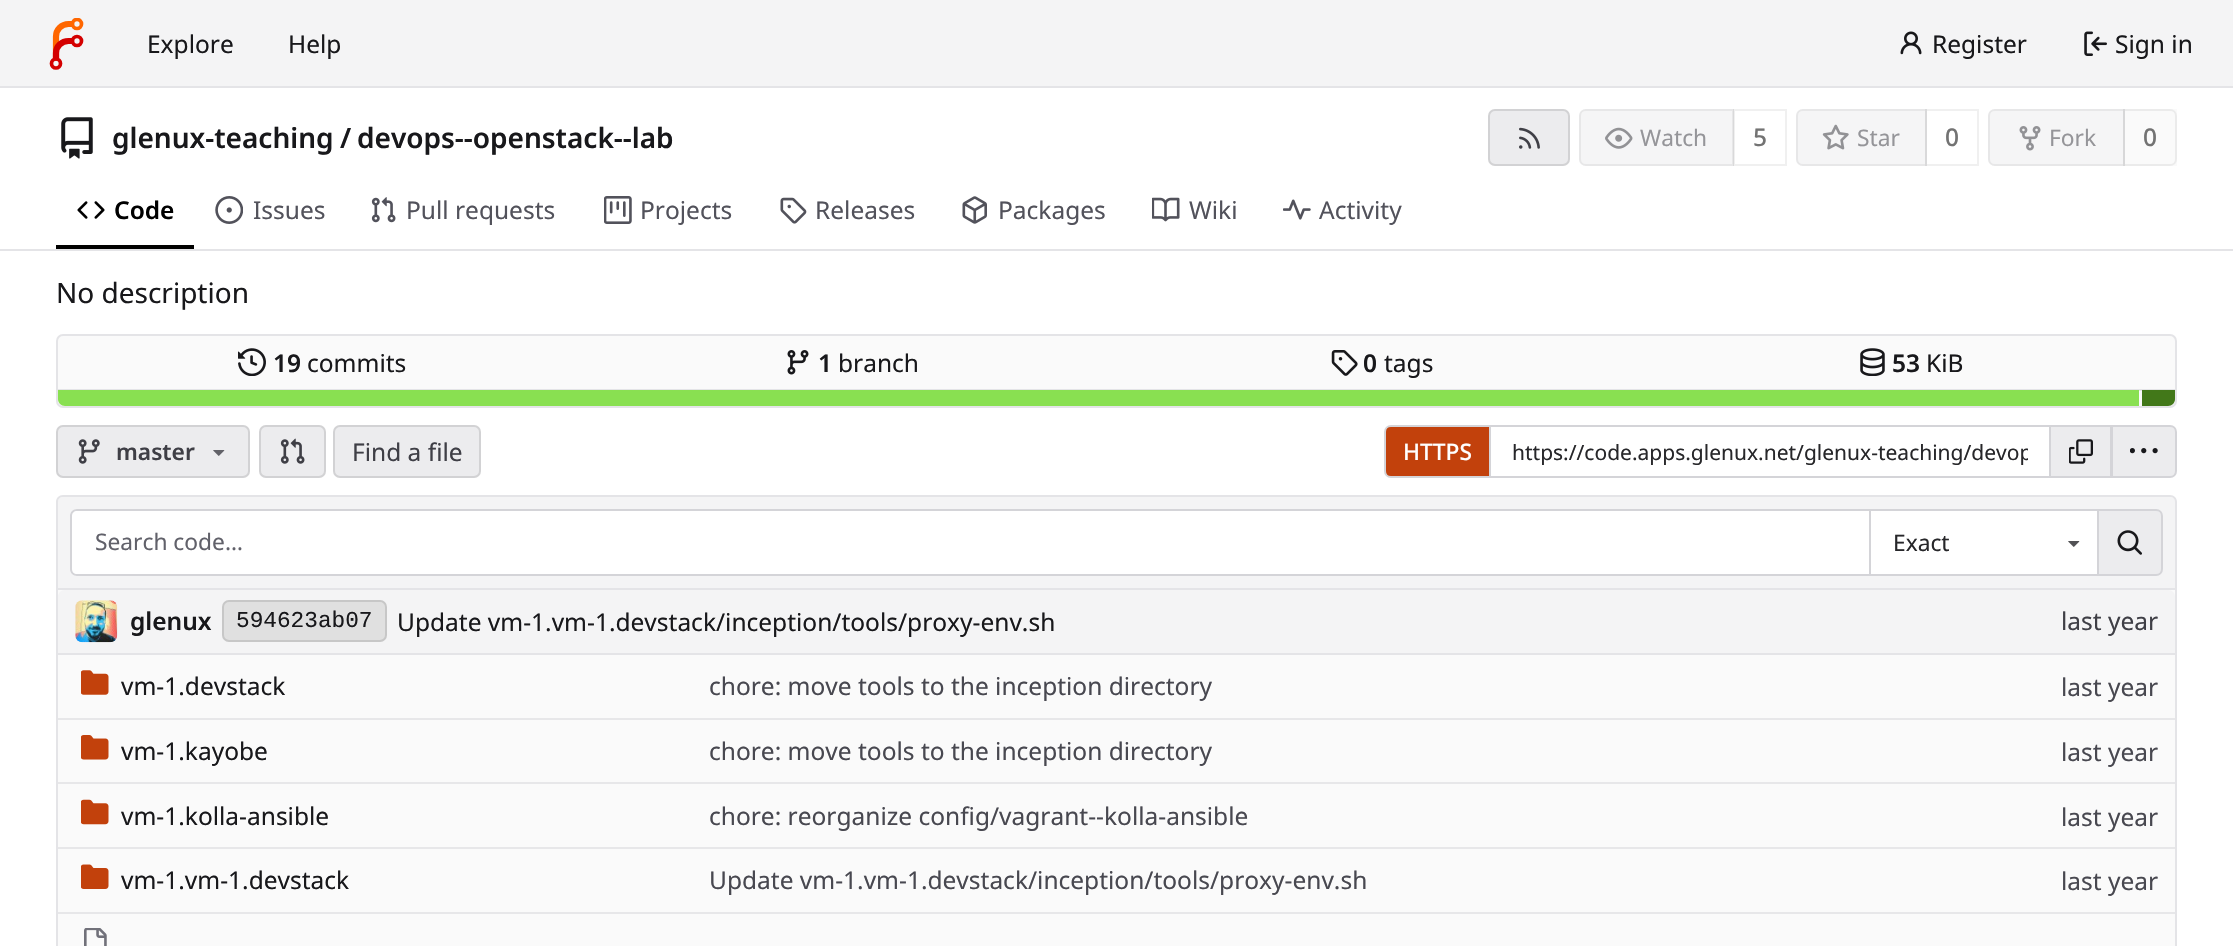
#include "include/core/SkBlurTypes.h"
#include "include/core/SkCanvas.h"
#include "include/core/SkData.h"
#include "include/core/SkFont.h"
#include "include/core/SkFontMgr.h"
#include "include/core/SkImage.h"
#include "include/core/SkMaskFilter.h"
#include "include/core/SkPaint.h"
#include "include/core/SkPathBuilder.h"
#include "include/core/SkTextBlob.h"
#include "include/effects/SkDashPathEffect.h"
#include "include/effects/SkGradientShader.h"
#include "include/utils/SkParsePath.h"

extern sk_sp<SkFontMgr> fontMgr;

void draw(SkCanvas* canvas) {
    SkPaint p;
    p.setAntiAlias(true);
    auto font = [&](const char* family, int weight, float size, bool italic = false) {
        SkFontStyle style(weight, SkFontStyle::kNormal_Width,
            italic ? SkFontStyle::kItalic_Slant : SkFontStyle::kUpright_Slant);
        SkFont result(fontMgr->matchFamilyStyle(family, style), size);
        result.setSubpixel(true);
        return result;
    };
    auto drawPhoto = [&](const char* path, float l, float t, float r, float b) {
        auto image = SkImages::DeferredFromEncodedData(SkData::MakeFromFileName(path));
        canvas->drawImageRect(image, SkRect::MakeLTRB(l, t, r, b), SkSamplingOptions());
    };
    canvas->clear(0xFFFFFFFF);
    p.setColor(0xFFF4F4F5);
    canvas->drawRect(SkRect::MakeLTRB(0, 0, 2233, 86), p);
    p.setColor(0xFFE4E4E7);
    canvas->drawRect(SkRect::MakeLTRB(0, 86, 2233, 88), p);
    p.setStyle(SkPaint::kStroke_Style);
    p.setStrokeWidth(6.2f);
    p.setColor(0xFFFF6600);
    canvas->drawPath(SkPathBuilder().moveTo(56, 60.5f).lineTo(56, 36.5f).cubicTo(56, 29.5f, 61.5f, 24, 68.5f, 24).lineTo(73.5f, 24).detach(), p);
    p.setColor(0xFFD40000);
    canvas->drawPath(SkPathBuilder().moveTo(56, 60.5f).lineTo(56, 53).cubicTo(56, 46.5f, 61.5f, 41, 68.5f, 41).lineTo(73.5f, 41).detach(), p);
    canvas->save();
    canvas->clipRect(SkRect::MakeLTRB(40, 18, 93, 70));
    p.setStrokeWidth(3.7f);
    p.setColor(0xFFFF6600);
    canvas->drawCircle(77, 24, 4.5f, p);
    canvas->restore();
    p.setColor(0xFFD40000);
    canvas->drawCircle(77, 41, 4.5f, p);
    canvas->drawCircle(56, 63.5f, 4.5f, p);
    auto font1 = font("Noto Sans", 400, 24.5f);
    p.setStyle(SkPaint::kFill_Style);
    p.setColor(0xFF18181B);
    canvas->drawString("Explore", 147, 53, font1, p);
    canvas->drawString("Help", 288, 53, font1, p);
    drawPhoto("media/1.png", 1900, 31, 1922, 55);
    canvas->drawString("Register", 1932, 53, font1, p);
    drawPhoto("media/2.png", 2084, 31, 2107, 56);
    canvas->drawString("Sign in", 2115, 53, font1, p);
    drawPhoto("media/3.png", 61, 117, 93, 159);
    auto font2 = font("Noto Sans", 600, 28);
    {
        const struct { const char* s; float x, y; } items[] = {
            {"glenux-teaching", 112, 148},
            {"/", 340, 148},
            {"devops--openstack--lab", 357, 148},
        };
        for (auto [s, x, y] : items) {
            canvas->drawString(s, x, y, font2, p);
        }
    }
    p.setColor(0xFFECECEE);
    canvas->drawRoundRect(SkRect::MakeLTRB(1488, 109, 1570, 166), 7, 7, p);
    p.setStyle(SkPaint::kStroke_Style);
    p.setStrokeWidth(2);
    p.setColor(0x1C000000);
    canvas->drawRoundRect(SkRect::MakeLTRB(1489, 110, 1569, 165), 6, 6, p);
    drawPhoto("media/4.png", 1519, 127, 1540, 149);
    p.setStyle(SkPaint::kFill_Style);
    p.setColor(0xFFF5F5F6);
    canvas->drawPath(SkPathBuilder().moveTo(1586, 109).lineTo(1734, 109).lineTo(1734, 166).lineTo(1586, 166).cubicTo(1582, 166, 1579, 163, 1579, 159).lineTo(1579, 116).cubicTo(1579, 112, 1582, 109, 1586, 109).close().detach(), p);
    p.setStyle(SkPaint::kStroke_Style);
    p.setColor(0x1C737373);
    canvas->drawPath(SkPathBuilder().moveTo(1586, 110).lineTo(1733, 110).lineTo(1733, 165).lineTo(1586, 165).cubicTo(1582.5f, 165, 1580, 162.5f, 1580, 159).lineTo(1580, 116).cubicTo(1580, 112.5f, 1582.5f, 110, 1586, 110).close().detach(), p);
    drawPhoto("media/5.png", 1605, 127, 1633, 149);
    auto font3 = font("Noto Sans", 400, 22.75f);
    p.setStyle(SkPaint::kFill_Style);
    p.setColor(0xFF959599);
    canvas->drawString("Watch", 1640, 146, font3, p);
    p.setStyle(SkPaint::kStroke_Style);
    p.setColor(0x0F000000);
    canvas->drawRect(SkRect::MakeLTRB(1734, 110, 1786, 165), p);
    auto font4 = font("Noto Sans", 500, 24.5f);
    p.setStyle(SkPaint::kFill_Style);
    p.setColor(0xFF737373);
    canvas->drawString("5", 1753, 146, font4, p);
    p.setColor(0xFFF5F5F6);
    canvas->drawPath(SkPathBuilder().moveTo(1803, 109).lineTo(1927, 109).lineTo(1927, 166).lineTo(1803, 166).cubicTo(1799, 166, 1796, 163, 1796, 159).lineTo(1796, 116).cubicTo(1796, 112, 1799, 109, 1803, 109).close().detach(), p);
    p.setStyle(SkPaint::kStroke_Style);
    p.setColor(0x1C737373);
    canvas->drawPath(SkPathBuilder().moveTo(1803, 110).lineTo(1926, 110).lineTo(1926, 165).lineTo(1803, 165).cubicTo(1799.5f, 165, 1797, 162.5f, 1797, 159).lineTo(1797, 116).cubicTo(1797, 112.5f, 1799.5f, 110, 1803, 110).close().detach(), p);
    drawPhoto("media/6.png", 1822, 124, 1849, 150);
    p.setStyle(SkPaint::kFill_Style);
    p.setColor(0xFF959599);
    canvas->drawString("Star", 1857, 146, font3, p);
    p.setStyle(SkPaint::kStroke_Style);
    p.setColor(0x0F000000);
    canvas->drawRect(SkRect::MakeLTRB(1926, 110, 1978, 165), p);
    p.setStyle(SkPaint::kFill_Style);
    p.setColor(0xFF737373);
    canvas->drawString("0", 1945, 146, font4, p);
    p.setColor(0xFFF5F5F6);
    canvas->drawPath(SkPathBuilder().moveTo(1995, 109).lineTo(2125, 109).lineTo(2125, 166).lineTo(1995, 166).cubicTo(1991, 166, 1988, 163, 1988, 159).lineTo(1988, 116).cubicTo(1988, 112, 1991, 109, 1995, 109).close().detach(), p);
    p.setStyle(SkPaint::kStroke_Style);
    p.setColor(0x1C737373);
    canvas->drawPath(SkPathBuilder().moveTo(1995, 110).lineTo(2124, 110).lineTo(2124, 165).lineTo(1995, 165).cubicTo(1991.5f, 165, 1989, 162.5f, 1989, 159).lineTo(1989, 116).cubicTo(1989, 112.5f, 1991.5f, 110, 1995, 110).close().detach(), p);
    drawPhoto("media/7.png", 2019, 126, 2041, 151);
    p.setStyle(SkPaint::kFill_Style);
    p.setColor(0xFF959599);
    canvas->drawString("Fork", 2049, 146, font3, p);
    p.setColor(0x0A737373);
    canvas->drawRect(SkRect::MakeLTRB(2123, 109, 2177, 166), p);
    p.setStyle(SkPaint::kStroke_Style);
    p.setColor(0x1C737373);
    canvas->drawPath(SkPathBuilder().moveTo(2124, 110).lineTo(2170, 110).cubicTo(2173.5f, 110, 2176, 112.5f, 2176, 116).lineTo(2176, 159).cubicTo(2176, 162.5f, 2173.5f, 165, 2170, 165).lineTo(2124, 165).close().detach(), p);
    p.setStyle(SkPaint::kFill_Style);
    p.setColor(0xFF737373);
    canvas->drawString("0", 2143, 146, font4, p);
    p.setColor(0xFF000000);
    canvas->drawRect(SkRect::MakeLTRB(56, 245, 194, 249), p);
    drawPhoto("media/8.png", 77, 201, 105, 219);
    auto font5 = font("Noto Sans", 600, 24.5f);
    canvas->drawString("Code", 114, 219, font5, p);
    drawPhoto("media/9.png", 215, 196, 243, 224);
    p.setColor(0xFF52525B);
    canvas->drawString("Issues", 253, 219, font1, p);
    drawPhoto("media/10.png", 371, 197, 396, 223);
    canvas->drawString("Pull requests", 406, 219, font1, p);
    drawPhoto("media/11.png", 604, 196, 632, 224);
    canvas->drawString("Projects", 640, 219, font1, p);
    drawPhoto("media/12.png", 780, 197, 807, 224);
    canvas->drawString("Releases", 815, 219, font1, p);
    drawPhoto("media/13.png", 962, 196, 987, 224);
    canvas->drawString("Packages", 998, 219, font1, p);
    drawPhoto("media/14.png", 1152, 197, 1180, 222);
    canvas->drawString("Wiki", 1189, 219, font1, p);
    drawPhoto("media/15.png", 1283, 199, 1311, 220);
    canvas->drawString("Activity", 1319, 219, font1, p);
    p.setColor(0xFFE4E4E7);
    canvas->drawRect(SkRect::MakeLTRB(0, 249, 2233, 251), p);
    auto font6 = font("Noto Sans", 400, 28);
    p.setColor(0xFF18181B);
    canvas->drawString("No description", 56, 303, font6, p);
    p.setColor(0xFFFAFAFA);
    canvas->drawRoundRect(SkRect::MakeLTRB(57, 335, 2176, 407), 6, 6, p);
    p.setStyle(SkPaint::kStroke_Style);
    p.setColor(0xFFE4E4E7);
    canvas->drawRoundRect(SkRect::MakeLTRB(57, 335, 2176, 407), 6, 6, p);
    drawPhoto("media/16.png", 238, 348, 266, 376);
    p.setStyle(SkPaint::kFill_Style);
    p.setColor(0xFF18181B);
    canvas->drawString("19", 273, 372, font5, p);
    canvas->drawString("commits", 307, 372, font1, p);
    drawPhoto("media/17.png", 787, 350, 809, 375);
    canvas->drawString("1", 818, 372, font5, p);
    canvas->drawString("branch", 838, 372, font1, p);
    drawPhoto("media/18.png", 1331, 350, 1358, 376);
    canvas->drawString("0", 1363, 372, font5, p);
    canvas->drawString("tags", 1384, 372, font1, p);
    drawPhoto("media/19.png", 1860, 348, 1885, 376);
    canvas->drawString("53", 1892, 372, font5, p);
    canvas->drawString("KiB", 1926, 372, font1, p);
    p.setColor(0xFFE4E4E7);
    canvas->drawRect(SkRect::MakeLTRB(58, 389, 2175, 391), p);
    p.setColor(0xFF89E051);
    canvas->drawPath(SkPathBuilder().moveTo(58, 390).lineTo(2139, 390).lineTo(2139, 406).lineTo(65, 406).cubicTo(61, 406, 58, 403, 58, 399).close().detach(), p);
    p.setColor(0xFF427819);
    canvas->drawPath(SkPathBuilder().moveTo(2142, 390).lineTo(2175, 390).lineTo(2175, 399).cubicTo(2175, 403, 2172, 406, 2168, 406).lineTo(2142, 406).close().detach(), p);
    p.setColor(0xFFECECEE);
    canvas->drawRoundRect(SkRect::MakeLTRB(56, 425, 250, 478), 7, 7, p);
    p.setStyle(SkPaint::kStroke_Style);
    p.setColor(0x1C000000);
    canvas->drawRoundRect(SkRect::MakeLTRB(57, 426, 249, 477), 6, 6, p);
    drawPhoto("media/20.png", 78, 439, 100, 464);
    auto font7 = font("Noto Sans", 600, 22.75f);
    p.setStyle(SkPaint::kFill_Style);
    p.setColor(0xFF3F3F46);
    canvas->drawString("master", 116, 460, font7, p);
    drawPhoto("media/21.png", 213, 450, 225, 456);
    p.setColor(0xFFECECEE);
    canvas->drawRoundRect(SkRect::MakeLTRB(259, 425, 326, 478), 7, 7, p);
    p.setStyle(SkPaint::kStroke_Style);
    p.setColor(0x1C000000);
    canvas->drawRoundRect(SkRect::MakeLTRB(260, 426, 325, 477), 6, 6, p);
    drawPhoto("media/22.png", 280, 438, 305, 464);
    p.setStyle(SkPaint::kFill_Style);
    p.setColor(0xFFECECEE);
    canvas->drawRoundRect(SkRect::MakeLTRB(333, 425, 481, 478), 7, 7, p);
    p.setStyle(SkPaint::kStroke_Style);
    p.setColor(0x1C000000);
    canvas->drawRoundRect(SkRect::MakeLTRB(334, 426, 480, 477), 6, 6, p);
    p.setStyle(SkPaint::kFill_Style);
    p.setColor(0xFF3F3F46);
    canvas->drawString("Find a file", 352, 461, font1, p);
    p.setColor(0xFFC2410C);
    canvas->drawPath(SkPathBuilder().moveTo(1391, 426).lineTo(1490, 426).lineTo(1490, 477).lineTo(1391, 477).cubicTo(1387.5f, 477, 1385, 474.5f, 1385, 471).lineTo(1385, 432).cubicTo(1385, 428.5f, 1387.5f, 426, 1391, 426).close().detach(), p);
    p.setStyle(SkPaint::kStroke_Style);
    p.setColor(0xFFD4D4D8);
    canvas->drawPath(SkPathBuilder().moveTo(1391, 426).lineTo(1490, 426).lineTo(1490, 477).lineTo(1391, 477).cubicTo(1387.5f, 477, 1385, 474.5f, 1385, 471).lineTo(1385, 432).cubicTo(1385, 428.5f, 1387.5f, 426, 1391, 426).close().detach(), p);
    auto font8 = font("Noto Sans", 500, 22.75f);
    p.setStyle(SkPaint::kFill_Style);
    p.setColor(0xFFFFFFFF);
    canvas->drawString("HTTPS", 1403, 460, font8, p);
    p.setColor(0xFFD4D4D8);
    canvas->drawRect(SkRect::MakeLTRB(1489, 425, 2049, 427), p);
    canvas->drawRect(SkRect::MakeLTRB(1489, 476, 2049, 478), p);
    canvas->save();
    canvas->clipRect(SkRect::MakeLTRB(1512, 438, 2028, 467));
    auto font9 = font("Noto Sans", 400, 21);
    p.setColor(0xFF27272A);
    canvas->drawString("https://code.apps.glenux.net/glenux-teaching/devop", 1512, 460, font9, p);
    canvas->restore();
    p.setColor(0xFFECECEE);
    canvas->drawRect(SkRect::MakeLTRB(2050, 426, 2111, 477), p);
    p.setStyle(SkPaint::kStroke_Style);
    p.setColor(0xFFD4D4D8);
    canvas->drawRect(SkRect::MakeLTRB(2050, 426, 2111, 477), p);
    drawPhoto("media/23.png", 2069, 439, 2093, 464);
    p.setStyle(SkPaint::kFill_Style);
    p.setColor(0xFFECECEE);
    canvas->drawPath(SkPathBuilder().moveTo(2112, 426).lineTo(2170, 426).cubicTo(2173.5f, 426, 2176, 428.5f, 2176, 432).lineTo(2176, 471).cubicTo(2176, 474.5f, 2173.5f, 477, 2170, 477).lineTo(2112, 477).close().detach(), p);
    p.setStyle(SkPaint::kStroke_Style);
    p.setColor(0xFFD4D4D8);
    canvas->drawPath(SkPathBuilder().moveTo(2112, 426).lineTo(2170, 426).cubicTo(2173.5f, 426, 2176, 428.5f, 2176, 432).lineTo(2176, 471).cubicTo(2176, 474.5f, 2173.5f, 477, 2170, 477).lineTo(2112, 477).close().detach(), p);
    drawPhoto("media/24.png", 2130, 448, 2158, 454);
    p.setStyle(SkPaint::kFill_Style);
    p.setColor(0xFFF4F4F5);
    canvas->drawPath(SkPathBuilder().moveTo(63, 497).lineTo(2170, 497).cubicTo(2173, 497, 2175, 499, 2175, 502).lineTo(2175, 588).lineTo(58, 588).lineTo(58, 502).cubicTo(58, 499, 60, 497, 63, 497).close().detach(), p);
    p.setColor(0xFFE4E4E7);
    canvas->drawPath(SkPathBuilder(SkPathFillType::kEvenOdd).moveTo(63, 495).lineTo(2170, 495).cubicTo(2174, 495, 2177, 498, 2177, 502).lineTo(2177, 588).lineTo(56, 588).lineTo(56, 502).cubicTo(56, 498, 59, 495, 63, 495).close().moveTo(63, 497).lineTo(2170, 497).cubicTo(2173, 497, 2175, 499, 2175, 502).lineTo(2175, 588).lineTo(58, 588).lineTo(58, 502).cubicTo(58, 499, 60, 497, 63, 497).close().detach(), p);
    p.setColor(0xFFFFFFFF);
    canvas->drawPath(SkPathBuilder().moveTo(77, 509).lineTo(1869, 509).lineTo(1869, 576).lineTo(77, 576).cubicTo(73, 576, 70, 573, 70, 569).lineTo(70, 516).cubicTo(70, 512, 73, 509, 77, 509).close().detach(), p);
    p.setColor(0xFFD4D4D8);
    canvas->drawPath(SkPathBuilder(SkPathFillType::kEvenOdd).moveTo(77, 509).lineTo(1869, 509).lineTo(1869, 576).lineTo(77, 576).cubicTo(73, 576, 70, 573, 70, 569).lineTo(70, 516).cubicTo(70, 512, 73, 509, 77, 509).close().moveTo(77, 511).lineTo(1869, 511).lineTo(1869, 574).lineTo(77, 574).cubicTo(74, 574, 72, 572, 72, 569).lineTo(72, 516).cubicTo(72, 513, 74, 511, 77, 511).close().detach(), p);
    p.setColor(0xFF61616A);
    canvas->drawString("Search code…", 95, 550, font3, p);
    {
        const struct { float l, t, r, b; SkColor color; } items[] = {
            {1871, 511, 2097, 574, 0xFFFFFFFF},
            {1869, 509, 2097, 511, 0xFFD4D4D8},
            {1869, 574, 2097, 576, 0xFFD4D4D8},
            {1869, 509, 1871, 576, 0xFFD4D4D8},
        };
        for (auto [l, t, r, b, color] : items) {
            p.setColor(color);
            canvas->drawRect(SkRect::MakeLTRB(l, t, r, b), p);
        }
    }
    p.setColor(0xFF27272A);
    canvas->drawString("Exact", 1893, 551, font3, p);
    drawPhoto("media/25.png", 2068, 541, 2080, 547);
    p.setColor(0xFFECECEE);
    canvas->drawPath(SkPathBuilder().moveTo(2098, 510).lineTo(2156, 510).cubicTo(2159.5f, 510, 2162, 512.5f, 2162, 516).lineTo(2162, 569).cubicTo(2162, 572.5f, 2159.5f, 575, 2156, 575).lineTo(2098, 575).close().detach(), p);
    p.setStyle(SkPaint::kStroke_Style);
    p.setColor(0xFFD4D4D8);
    canvas->drawPath(SkPathBuilder().moveTo(2098, 510).lineTo(2156, 510).cubicTo(2159.5f, 510, 2162, 512.5f, 2162, 516).lineTo(2162, 569).cubicTo(2162, 572.5f, 2159.5f, 575, 2156, 575).lineTo(2098, 575).close().detach(), p);
    drawPhoto("media/26.png", 2117, 530, 2142, 555);
    p.setStyle(SkPaint::kFill_Style);
    p.setColor(0xFFFAFAFA);
    canvas->drawRect(SkRect::MakeLTRB(57, 589, 2176, 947), p);
    p.setStyle(SkPaint::kStroke_Style);
    p.setColor(0xFFE4E4E7);
    canvas->drawRect(SkRect::MakeLTRB(57, 589, 2176, 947), p);
    p.setStyle(SkPaint::kFill_Style);
    p.setColor(0xFFF4F4F5);
    canvas->drawPath(SkPathBuilder().moveTo(65, 590).lineTo(1988, 590).lineTo(1988, 655).lineTo(58, 655).lineTo(58, 597).cubicTo(58, 593, 61, 590, 65, 590).close().detach(), p);
    p.setColor(0xFFE4E4E7);
    canvas->drawRect(SkRect::MakeLTRB(58, 653, 1988, 655), p);
    drawPhoto("media/27.png", 75, 600, 118, 643);
    p.setColor(0xFF18181B);
    canvas->drawString("glenux", 130, 630, font5, p);
    p.setColor(0xFFE0E0E0);
    canvas->drawRoundRect(SkRect::MakeLTRB(222, 600, 387, 642), 7, 7, p);
    p.setStyle(SkPaint::kStroke_Style);
    p.setColor(0x1C000000);
    canvas->drawRoundRect(SkRect::MakeLTRB(223, 601, 386, 641), 6, 6, p);
    auto font10 = font("Liberation Mono", 400, 22.75f);
    p.setStyle(SkPaint::kFill_Style);
    p.setColor(0xFF18181B);
    canvas->drawString("594623ab07", 236, 627, font10, p);
    canvas->drawString("Update vm-1.vm-1.devstack/inception/tools/proxy-env.sh", 397, 631, font1, p);
    p.setColor(0xFFF4F4F5);
    canvas->drawPath(SkPathBuilder().moveTo(1988, 590).lineTo(2168, 590).cubicTo(2172, 590, 2175, 593, 2175, 597).lineTo(2175, 655).lineTo(1988, 655).close().detach(), p);
    p.setColor(0xFFE4E4E7);
    canvas->drawRect(SkRect::MakeLTRB(1988, 653, 2175, 655), p);
    p.setColor(0xFF3F3F46);
    canvas->drawString("last year", 2061, 630, font1, p);
    drawPhoto("media/28.png", 81, 670, 109, 695);
    p.setColor(0xFF18181B);
    canvas->drawString("vm-1.devstack", 121, 695, font1, p);
    p.setColor(0xFF484850);
    canvas->drawString("chore: move tools to the inception directory", 709, 695, font1, p);
    canvas->drawString("last year", 2061, 696, font1, p);
    p.setColor(0xFFE7E7E9);
    canvas->drawRect(SkRect::MakeLTRB(58, 718, 2175, 720), p);
    drawPhoto("media/29.png", 81, 735, 109, 760);
    p.setColor(0xFF18181B);
    canvas->drawString("vm-1.kayobe", 121, 760, font1, p);
    p.setColor(0xFF484850);
    canvas->drawString("chore: move tools to the inception directory", 709, 760, font1, p);
    canvas->drawString("last year", 2061, 761, font1, p);
    p.setColor(0xFFE7E7E9);
    canvas->drawRect(SkRect::MakeLTRB(58, 782, 2175, 784), p);
    drawPhoto("media/30.png", 81, 799, 109, 825);
    p.setColor(0xFF18181B);
    canvas->drawString("vm-1.kolla-ansible", 121, 825, font1, p);
    p.setColor(0xFF484850);
    canvas->drawString("chore: reorganize config/vagrant--kolla-ansible", 709, 825, font1, p);
    canvas->drawString("last year", 2061, 826, font1, p);
    p.setColor(0xFFE7E7E9);
    canvas->drawRect(SkRect::MakeLTRB(58, 847, 2175, 849), p);
    drawPhoto("media/31.png", 81, 864, 109, 889);
    p.setColor(0xFF18181B);
    canvas->drawString("vm-1.vm-1.devstack", 121, 889, font1, p);
    p.setColor(0xFF484850);
    canvas->drawString("Update vm-1.vm-1.devstack/inception/tools/proxy-env.sh", 709, 889, font1, p);
    canvas->drawString("last year", 2061, 890, font1, p);
    p.setColor(0xFFE7E7E9);
    canvas->drawRect(SkRect::MakeLTRB(58, 912, 2175, 914), p);
    drawPhoto("media/32.png", 84, 928, 107, 946);
}
